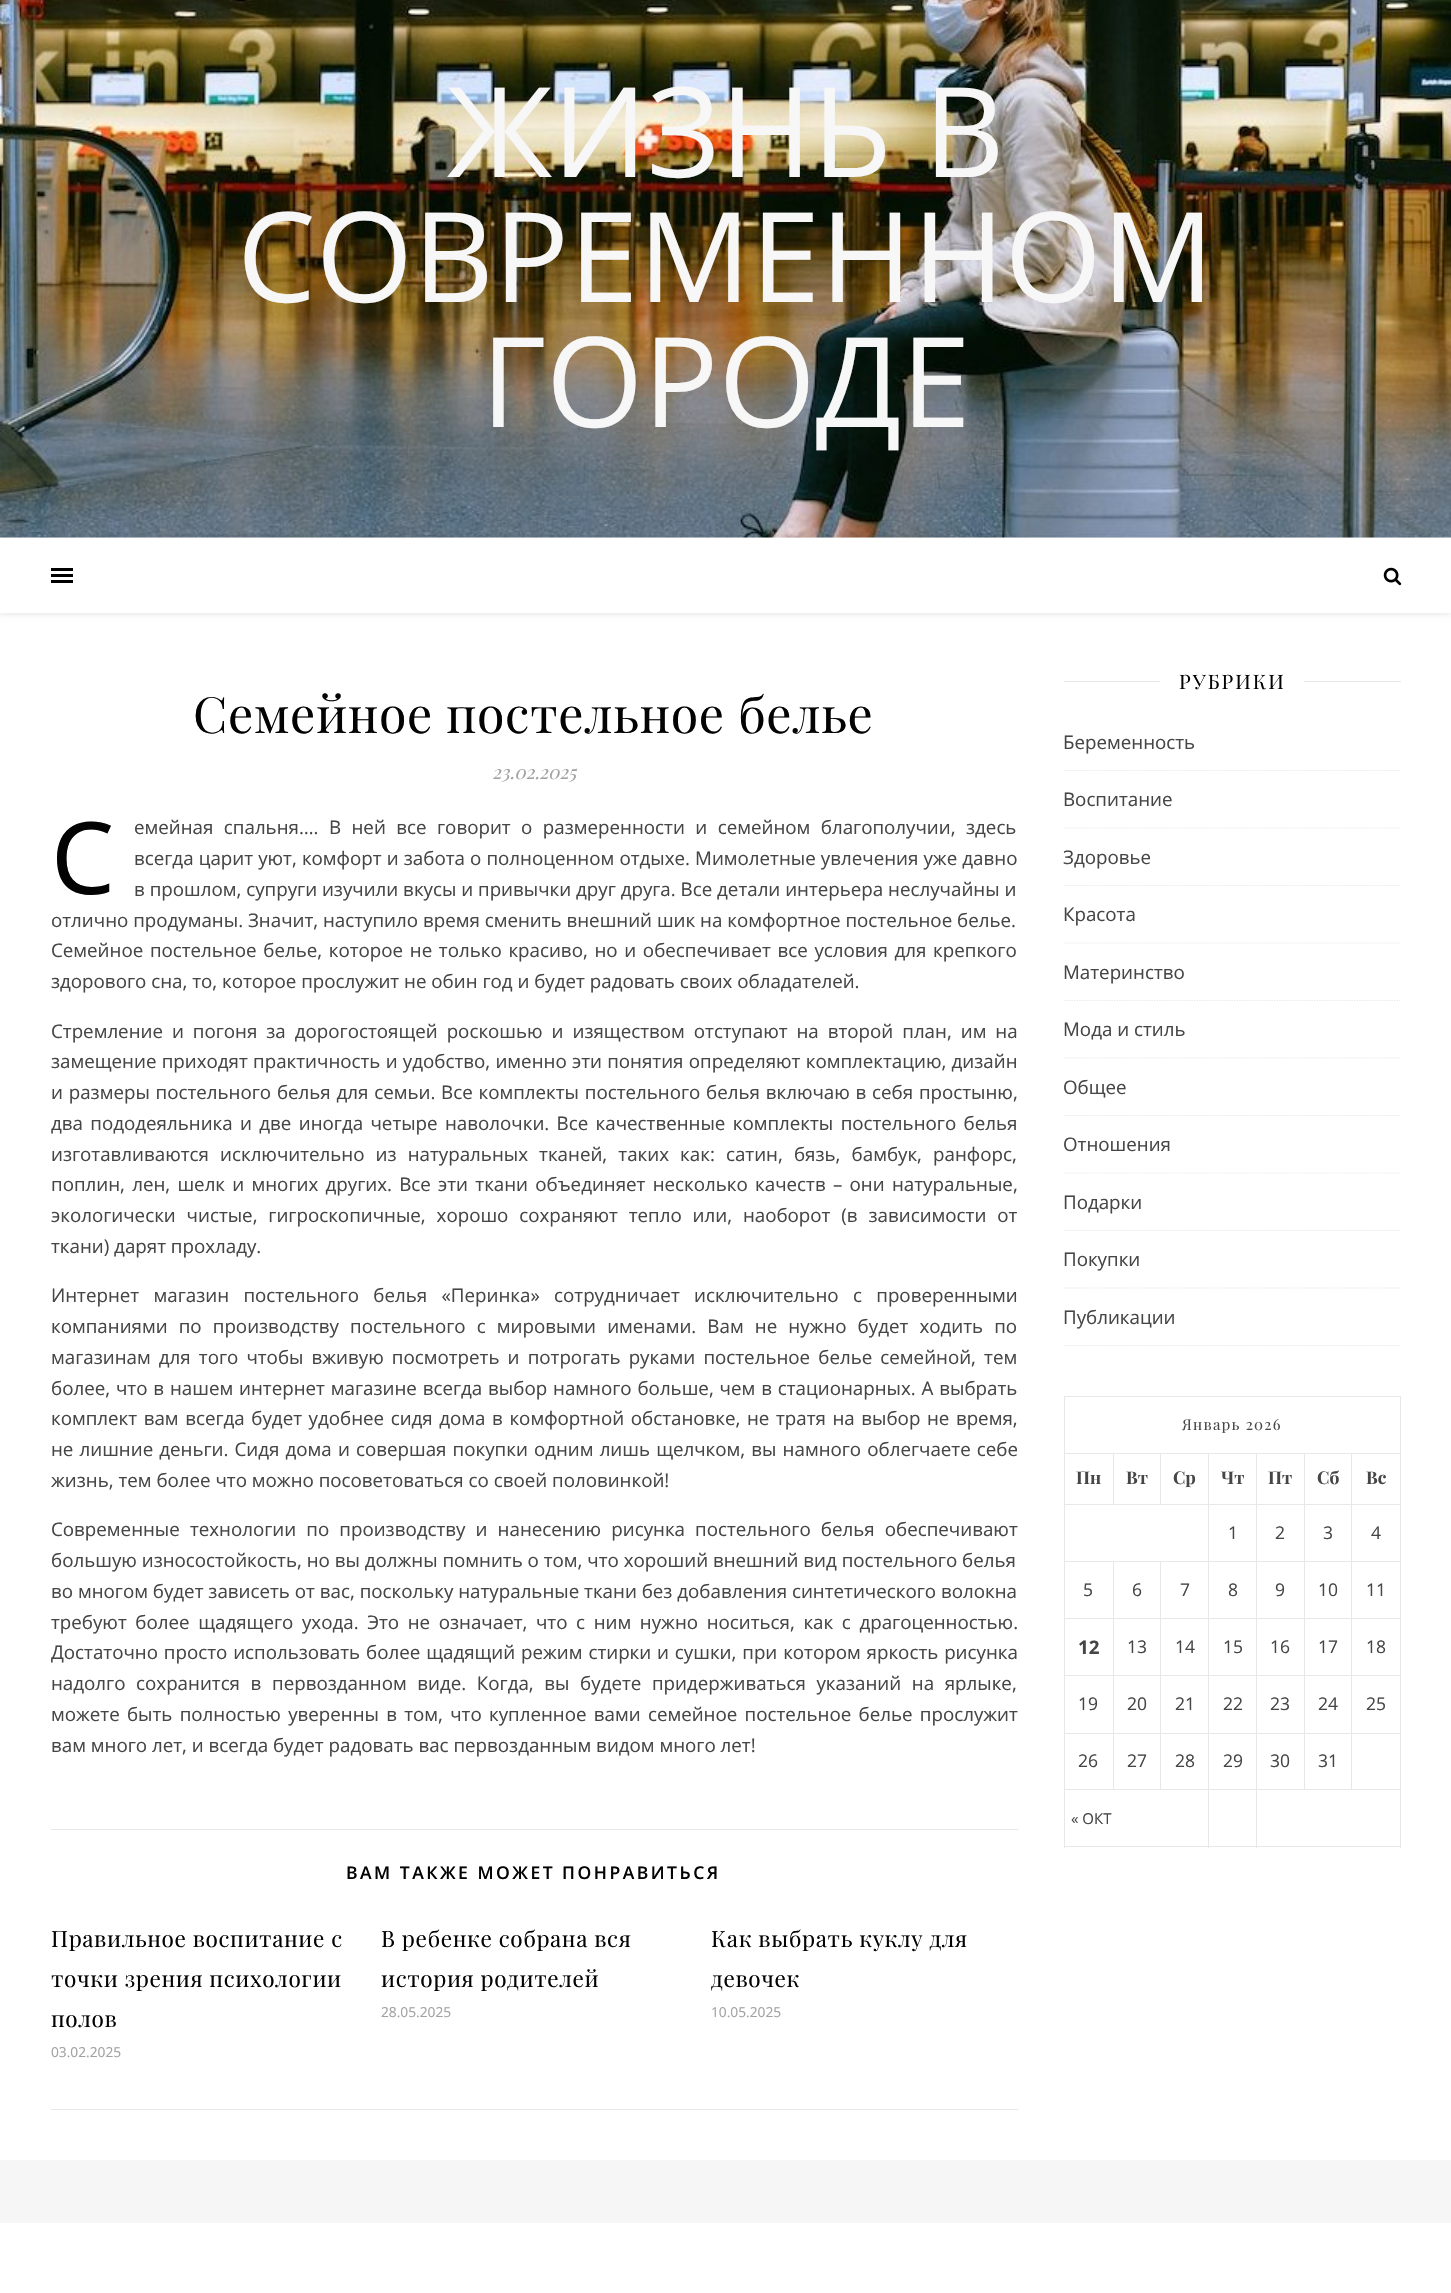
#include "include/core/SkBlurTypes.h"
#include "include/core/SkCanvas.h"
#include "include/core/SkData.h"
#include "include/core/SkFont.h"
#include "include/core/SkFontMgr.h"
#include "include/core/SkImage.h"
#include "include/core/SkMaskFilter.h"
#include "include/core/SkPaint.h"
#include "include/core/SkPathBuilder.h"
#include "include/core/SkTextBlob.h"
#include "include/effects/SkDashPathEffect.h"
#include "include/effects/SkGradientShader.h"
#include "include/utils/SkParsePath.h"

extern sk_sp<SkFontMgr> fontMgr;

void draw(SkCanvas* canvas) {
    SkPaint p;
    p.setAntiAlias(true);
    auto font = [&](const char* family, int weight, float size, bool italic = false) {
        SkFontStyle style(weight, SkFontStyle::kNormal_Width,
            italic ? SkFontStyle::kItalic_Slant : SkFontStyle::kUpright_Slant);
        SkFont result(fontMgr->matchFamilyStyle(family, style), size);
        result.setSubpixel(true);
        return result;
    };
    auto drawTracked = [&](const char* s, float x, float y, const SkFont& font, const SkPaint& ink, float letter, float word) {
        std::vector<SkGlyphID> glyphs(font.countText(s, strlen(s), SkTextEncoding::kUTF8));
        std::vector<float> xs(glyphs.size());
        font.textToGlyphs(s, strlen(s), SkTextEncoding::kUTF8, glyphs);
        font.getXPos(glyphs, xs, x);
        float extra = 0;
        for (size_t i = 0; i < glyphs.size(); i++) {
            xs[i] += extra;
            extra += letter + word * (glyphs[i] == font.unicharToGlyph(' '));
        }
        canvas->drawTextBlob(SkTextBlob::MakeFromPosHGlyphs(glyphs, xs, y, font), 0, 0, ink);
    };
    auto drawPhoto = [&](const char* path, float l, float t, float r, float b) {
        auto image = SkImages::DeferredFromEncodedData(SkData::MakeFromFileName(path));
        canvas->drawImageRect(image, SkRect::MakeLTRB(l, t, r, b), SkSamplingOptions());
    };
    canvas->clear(0xFFFFFFFF);
    drawPhoto("media/1.png", 0, 0, 1451, 538);
    auto font1 = font("Open Sans", 400, 125);
    p.setColor(0xFFF7F7F7);
    {
        const struct { const char* s; float x, y; } items[] = {
            {"ЖИЗНЬ В", 447, 177},
            {"СОВРЕМЕННОМ", 237, 302},
            {"ГОРОДЕ", 481, 427},
        };
        for (auto [s, x, y] : items) {
            canvas->drawString(s, x, y, font1, p);
        }
    }
    p.setColor(0x1A000000);
    p.setMaskFilter(SkMaskFilter::MakeBlur(kNormal_SkBlurStyle, 3));
    canvas->drawRect(SkRect::MakeLTRB(0, 539, 1451, 614), p);
    p.setMaskFilter(nullptr);
    {
        const struct { float l, t, r, b; SkColor color; } items[] = {
            {0, 538, 1451, 613, 0xFFFFFFFF},
            {51, 568, 73, 571, 0xFF000000},
            {51, 574, 73, 577, 0xFF000000},
            {51, 580, 73, 583, 0xFF000000},
        };
        for (auto [l, t, r, b, color] : items) {
            p.setColor(color);
            canvas->drawRect(SkRect::MakeLTRB(l, t, r, b), p);
        }
    }
    drawPhoto("media/2.png", 1383, 567, 1402, 586);
    auto font2 = font("Playfair Display", 400, 50);
    p.setColor(0xFF030303);
    drawTracked("Семейное постельное белье", 193, 733, font2, p, 0.6f, 0);
    auto font3 = font("Playfair Display", 400, 18.75f, true);
    p.setColor(0xFFA1A1A1);
    canvas->drawString("23.02.2025", 492, 779, font3, p);
    auto font4 = font("Noto Sans", 400, 100);
    p.setColor(0xFF030303);
    canvas->drawString("С", 51, 894, font4, p);
    auto font5 = font("Open Sans", 400, 18.75f);
    p.setColor(0xFF464646);
    drawTracked("емейная спальня…. В ней все говорит о размеренности и семейном благополучии, здесь", 134, 834, font5, p, 0, 5.6f);
    drawTracked("всегда царит уют, комфорт и забота о полноценном отдыхе. Мимолетные увлечения уже давно", 134, 865, font5, p, 0, 0.25f);
    canvas->drawString("в прошлом, супруги изучили вкусы и привычки друг друга. Все детали интерьера неслучайны и", 134, 896, font5, p);
    canvas->drawString("отлично продуманы. Значит, наступило время сменить внешний шик на комфортное постельное белье.", 51, 927, font5, p);
    drawTracked("Семейное постельное белье, которое не только красиво, но и обеспечивает все условия для крепкого", 51, 957, font5, p, 0, 1.8f);
    canvas->drawString("здорового сна, то, которое прослужит не обин год и будет радовать своих обладателей.", 51, 988, font5, p);
    drawTracked("Стремление и погоня за дорогостоящей роскошью и изяществом отступают на второй план, им на", 51, 1038, font5, p, 0, 4.1f);
    drawTracked("замещение приходят практичность и удобство, именно эти понятия определяют комплектацию, дизайн", 51, 1068, font5, p, 0, 0.4f);
    drawTracked("и размеры постельного белья для семьи. Все комплекты постельного белья включаю в себя простыню,", 51, 1099, font5, p, 0, 0.9f);
    drawTracked("два пододеяльника и две иногда четыре наволочки. Все качественные комплекты постельного белья", 51, 1130, font5, p, 0, 2.5f);
    drawTracked("изготавливаются исключительно из натуральных тканей, таких как: сатин, бязь, бамбук, ранфорс,", 51, 1161, font5, p, 0, 6.25f);
    drawTracked("поплин, лен, шелк и многих других. Все эти ткани объединяет несколько качеств – они натуральные,", 51, 1191, font5, p, 0, 2.4f);
    drawTracked("экологически чистые, гигроскопичные, хорошо сохраняют тепло или, наоборот (в зависимости от", 51, 1222, font5, p, 0, 6);
    canvas->drawString("ткани) дарят прохладу.", 51, 1253, font5, p);
    drawTracked("Интернет магазин постельного белья «Перинка» сотрудничает исключительно с проверенными", 51, 1302, font5, p, 0, 9.5f);
    drawTracked("компаниями по производству постельного с мировыми именами. Вам не нужно будет ходить по", 51, 1333, font5, p, 0, 6.25f);
    drawTracked("магазинам для того чтобы вживую посмотреть и потрогать руками постельное белье семейной, тем", 51, 1364, font5, p, 0, 3.25f);
    drawTracked("более, что в нашем интернет магазине всегда выбор намного больше, чем в стационарных. А выбрать", 51, 1395, font5, p, 0, 1);
    drawTracked("комплект вам всегда будет удобнее сидя дома в комфортной обстановке, не тратя на выбор не время,", 51, 1425, font5, p, 0, 1.7f);
    drawTracked("не лишние деньги. Сидя дома и совершая покупки одним лишь щелчком, вы намного облегчаете себе", 51, 1456, font5, p, 0, 1.25f);
    canvas->drawString("жизнь, тем более что можно посоветоваться со своей половинкой!", 51, 1487, font5, p);
    drawTracked("Современные технологии по производству и нанесению рисунка постельного белья обеспечивают", 51, 1536, font5, p, 0, 5.25f);
    canvas->drawString("большую износостойкость, но вы должны помнить о том, что хороший внешний вид постельного белья", 51, 1567, font5, p);
    canvas->drawString("во многом будет зависеть от вас, поскольку натуральные ткани без добавления синтетического волокна", 51, 1598, font5, p);
    drawTracked("требуют более щадящего ухода. Это не означает, что с ним нужно носиться, как с драгоценностью.", 51, 1629, font5, p, 0, 3.75f);
    canvas->save();
    canvas->clipRect(SkRect::MakeLTRB(51, 813, 1018, 1779));
    drawTracked("Достаточно просто использовать более щадящий режим стирки и сушки, при котором яркость рисунка", 51, 1659, font5, p, 0, 1);
    canvas->restore();
    drawTracked("надолго сохранится в первозданном виде. Когда, вы будете придерживаться указаний на ярлыке,", 51, 1690, font5, p, 0, 5.75f);
    drawTracked("можете быть полностью уверенны в том, что купленное вами семейное постельное белье прослужит", 51, 1721, font5, p, 0, 2.4f);
    canvas->drawString("вам много лет, и всегда будет радовать вас первозданным видом много лет!", 51, 1752, font5, p);
    p.setColor(0xFFE8E8E8);
    canvas->drawRect(SkRect::MakeLTRB(51, 1829, 1018, 1830), p);
    canvas->drawRect(SkRect::MakeLTRB(51, 2109, 1018, 2110), p);
    auto font6 = font("Open Sans", 600, 17.5f);
    p.setColor(0xFF030303);
    drawTracked("ВАМ ТАКЖЕ МОЖЕТ ПОНРАВИТЬСЯ", 346, 1879, font6, p, 2.5f, 0);
    auto font7 = font("Playfair Display", 400, 22.5f);
    {
        const struct { const char* s; float x, y; } items[] = {
            {"Правильное воспитание с", 51, 1947},
            {"точки зрения психологии", 51, 1987},
            {"полов", 51, 2027},
        };
        for (auto [s, x, y] : items) {
            drawTracked(s, x, y, font7, p, 0.6f, 0);
        }
    }
    auto font8 = font("Open Sans", 400, 13.75f);
    p.setColor(0xFFA1A1A1);
    canvas->drawString("03.02.2025", 51, 2057, font8, p);
    p.setColor(0xFF030303);
    drawTracked("В ребенке собрана вся", 381, 1947, font7, p, 0.6f, 0);
    drawTracked("история родителей", 381, 1987, font7, p, 0.6f, 0);
    p.setColor(0xFFA1A1A1);
    canvas->drawString("28.05.2025", 381, 2017, font8, p);
    p.setColor(0xFF030303);
    drawTracked("Как выбрать куклу для", 711, 1947, font7, p, 0.6f, 0);
    drawTracked("девочек", 711, 1987, font7, p, 0.6f, 0);
    p.setColor(0xFFA1A1A1);
    canvas->drawString("10.05.2025", 711, 2017, font8, p);
    p.setColor(0xFFE8E8E8);
    canvas->drawRect(SkRect::MakeLTRB(1064, 681, 1160, 682), p);
    auto font9 = font("Playfair Display", 400, 20);
    p.setColor(0xFF030303);
    drawTracked("РУБРИКИ", 1179, 689, font9, p, 2, 0);
    p.setColor(0xFFE8E8E8);
    canvas->drawRect(SkRect::MakeLTRB(1304, 681, 1401, 682), p);
    p.setStyle(SkPaint::kStroke_Style);
    p.setStrokeWidth(1.2f);
    p.setPathEffect(SkDashPathEffect::Make({{1.25f, 1.25f}}, 0));
    canvas->drawPath(SkPathBuilder().moveTo(1064, 770.5f).lineTo(1401, 770.5f).detach(), p);
    p.setPathEffect(nullptr);
    p.setStyle(SkPaint::kFill_Style);
    p.setColor(0xFF464646);
    canvas->drawString("Беременность", 1063, 749, font5, p);
    p.setStyle(SkPaint::kStroke_Style);
    p.setColor(0xFFE8E8E8);
    p.setPathEffect(SkDashPathEffect::Make({{1.25f, 1.25f}}, 0));
    canvas->drawPath(SkPathBuilder().moveTo(1064, 828).lineTo(1401, 828).detach(), p);
    p.setPathEffect(nullptr);
    p.setStyle(SkPaint::kFill_Style);
    p.setColor(0xFF464646);
    canvas->drawString("Воспитание", 1063, 806, font5, p);
    p.setStyle(SkPaint::kStroke_Style);
    p.setColor(0xFFE8E8E8);
    p.setPathEffect(SkDashPathEffect::Make({{1.25f, 1.25f}}, 0));
    canvas->drawPath(SkPathBuilder().moveTo(1064, 885.5f).lineTo(1401, 885.5f).detach(), p);
    p.setPathEffect(nullptr);
    p.setStyle(SkPaint::kFill_Style);
    p.setColor(0xFF464646);
    canvas->drawString("Здоровье", 1063, 864, font5, p);
    p.setStyle(SkPaint::kStroke_Style);
    p.setColor(0xFFE8E8E8);
    p.setPathEffect(SkDashPathEffect::Make({{1.25f, 1.25f}}, 0));
    canvas->drawPath(SkPathBuilder().moveTo(1064, 943).lineTo(1401, 943).detach(), p);
    p.setPathEffect(nullptr);
    p.setStyle(SkPaint::kFill_Style);
    p.setColor(0xFF464646);
    canvas->drawString("Красота", 1063, 921, font5, p);
    p.setStyle(SkPaint::kStroke_Style);
    p.setColor(0xFFE8E8E8);
    p.setPathEffect(SkDashPathEffect::Make({{1.25f, 1.25f}}, 0));
    canvas->drawPath(SkPathBuilder().moveTo(1064, 1000.5f).lineTo(1401, 1000.5f).detach(), p);
    p.setPathEffect(nullptr);
    p.setStyle(SkPaint::kFill_Style);
    p.setColor(0xFF464646);
    canvas->drawString("Материнство", 1063, 979, font5, p);
    p.setStyle(SkPaint::kStroke_Style);
    p.setColor(0xFFE8E8E8);
    p.setPathEffect(SkDashPathEffect::Make({{1.25f, 1.25f}}, 0));
    canvas->drawPath(SkPathBuilder().moveTo(1064, 1058).lineTo(1401, 1058).detach(), p);
    p.setPathEffect(nullptr);
    p.setStyle(SkPaint::kFill_Style);
    p.setColor(0xFF464646);
    canvas->drawString("Мода и стиль", 1063, 1036, font5, p);
    p.setStyle(SkPaint::kStroke_Style);
    p.setColor(0xFFE8E8E8);
    p.setPathEffect(SkDashPathEffect::Make({{1.25f, 1.25f}}, 0));
    canvas->drawPath(SkPathBuilder().moveTo(1064, 1115.5f).lineTo(1401, 1115.5f).detach(), p);
    p.setPathEffect(nullptr);
    p.setStyle(SkPaint::kFill_Style);
    p.setColor(0xFF464646);
    canvas->drawString("Общее", 1063, 1094, font5, p);
    p.setStyle(SkPaint::kStroke_Style);
    p.setColor(0xFFE8E8E8);
    p.setPathEffect(SkDashPathEffect::Make({{1.25f, 1.25f}}, 0));
    canvas->drawPath(SkPathBuilder().moveTo(1064, 1173).lineTo(1401, 1173).detach(), p);
    p.setPathEffect(nullptr);
    p.setStyle(SkPaint::kFill_Style);
    p.setColor(0xFF464646);
    canvas->drawString("Отношения", 1063, 1151, font5, p);
    p.setStyle(SkPaint::kStroke_Style);
    p.setColor(0xFFE8E8E8);
    p.setPathEffect(SkDashPathEffect::Make({{1.25f, 1.25f}}, 0));
    canvas->drawPath(SkPathBuilder().moveTo(1064, 1230.5f).lineTo(1401, 1230.5f).detach(), p);
    p.setPathEffect(nullptr);
    p.setStyle(SkPaint::kFill_Style);
    p.setColor(0xFF464646);
    canvas->drawString("Подарки", 1063, 1209, font5, p);
    p.setStyle(SkPaint::kStroke_Style);
    p.setColor(0xFFE8E8E8);
    p.setPathEffect(SkDashPathEffect::Make({{1.25f, 1.25f}}, 0));
    canvas->drawPath(SkPathBuilder().moveTo(1064, 1288).lineTo(1401, 1288).detach(), p);
    p.setPathEffect(nullptr);
    p.setStyle(SkPaint::kFill_Style);
    p.setColor(0xFF464646);
    canvas->drawString("Покупки", 1063, 1266, font5, p);
    canvas->save();
    canvas->clipRect(SkRect::MakeLTRB(1064, 663, 1401, 1346));
    p.setStyle(SkPaint::kStroke_Style);
    p.setColor(0xFFE8E8E8);
    p.setPathEffect(SkDashPathEffect::Make({{1.25f, 1.25f}}, 0));
    canvas->drawPath(SkPathBuilder().moveTo(1064, 1345.5f).lineTo(1401, 1345.5f).detach(), p);
    p.setPathEffect(nullptr);
    canvas->restore();
    p.setStyle(SkPaint::kFill_Style);
    p.setColor(0xFF464646);
    canvas->drawString("Публикации", 1063, 1324, font5, p);
    {
        const struct { float l, t, r, b; SkColor color; } items[] = {
            {1064, 1396, 1401, 1397, 0xFFE8E8E8},
            {1400, 1396, 1401, 1848, 0xFFE8E8E8},
            {1064, 1846, 1401, 1847, 0xFFE8E8E8},
            {1064, 1396, 1065, 1848, 0xFFE8E8E8},
        };
        for (auto [l, t, r, b, color] : items) {
            p.setColor(color);
            canvas->drawRect(SkRect::MakeLTRB(l, t, r, b), p);
        }
    }
    auto font10 = font("Playfair Display", 400, 15);
    p.setColor(0xFF464646);
    drawTracked("Январь 2026", 1182, 1430, font10, p, 1.25f, 0);
    p.setColor(0xFFE8E8E8);
    canvas->drawRect(SkRect::MakeLTRB(1064, 1453, 1401, 1454), p);
    auto font11 = font("Playfair Display", 700, 17.5f);
    p.setColor(0xFF464646);
    canvas->drawString("Пн", 1076, 1484, font11, p);
    p.setColor(0xFFE8E8E8);
    canvas->drawRect(SkRect::MakeLTRB(1064, 1504, 1401, 1505), p);
    canvas->drawRect(SkRect::MakeLTRB(1113, 1453, 1114, 1505), p);
    p.setColor(0xFF464646);
    canvas->drawString("Вт", 1126, 1484, font11, p);
    p.setColor(0xFFE8E8E8);
    canvas->drawRect(SkRect::MakeLTRB(1160, 1453, 1161, 1505), p);
    p.setColor(0xFF464646);
    {
        const struct { const char* s; float x, y; } items[] = {
            {"Ср", 1173, 1484},
            {"Чт", 1221, 1484},
            {"Пт", 1268, 1484},
            {"Сб", 1317, 1484},
            {"Вс", 1366, 1484},
        };
        for (auto [s, x, y] : items) {
            canvas->drawString(s, x, y, font11, p);
        }
    }
    auto font12 = font("Open Sans", 400, 17.5f);
    {
        const struct { const char* s; float x, y; } items[] = {
            {"1", 1228, 1539},
            {"2", 1275, 1539},
            {"3", 1323, 1539},
            {"4", 1371, 1539},
        };
        for (auto [s, x, y] : items) {
            canvas->drawString(s, x, y, font12, p);
        }
    }
    p.setColor(0xFFE8E8E8);
    canvas->drawRect(SkRect::MakeLTRB(1064, 1561, 1401, 1562), p);
    p.setColor(0xFF464646);
    {
        const struct { const char* s; float x, y; } items[] = {
            {"5", 1083, 1596},
            {"6", 1132, 1596},
            {"7", 1180, 1596},
            {"8", 1228, 1596},
            {"9", 1275, 1596},
            {"10", 1318, 1596},
            {"11", 1366, 1596},
        };
        for (auto [s, x, y] : items) {
            canvas->drawString(s, x, y, font12, p);
        }
    }
    p.setColor(0xFFE8E8E8);
    canvas->drawRect(SkRect::MakeLTRB(1064, 1618, 1401, 1619), p);
    auto font13 = font("Open Sans", 700, 18.75f);
    p.setColor(0xFF464646);
    canvas->drawString("12", 1078, 1654, font13, p);
    {
        const struct { const char* s; float x, y; } items[] = {
            {"13", 1127, 1653},
            {"14", 1175, 1653},
            {"15", 1223, 1653},
            {"16", 1270, 1653},
            {"17", 1318, 1653},
            {"18", 1366, 1653},
        };
        for (auto [s, x, y] : items) {
            canvas->drawString(s, x, y, font12, p);
        }
    }
    p.setColor(0xFFE8E8E8);
    canvas->drawRect(SkRect::MakeLTRB(1064, 1675, 1401, 1676), p);
    p.setColor(0xFF464646);
    {
        const struct { const char* s; float x, y; } items[] = {
            {"19", 1078, 1710},
            {"20", 1127, 1710},
            {"21", 1175, 1710},
            {"22", 1223, 1710},
            {"23", 1270, 1710},
            {"24", 1318, 1710},
            {"25", 1366, 1710},
        };
        for (auto [s, x, y] : items) {
            canvas->drawString(s, x, y, font12, p);
        }
    }
    p.setColor(0xFFE8E8E8);
    canvas->drawRect(SkRect::MakeLTRB(1064, 1733, 1401, 1734), p);
    canvas->drawRect(SkRect::MakeLTRB(1064, 1789, 1401, 1790), p);
    p.setColor(0xFF464646);
    canvas->drawString("26", 1078, 1767, font12, p);
    p.setColor(0xFFE8E8E8);
    canvas->drawRect(SkRect::MakeLTRB(1113, 1561, 1114, 1790), p);
    p.setColor(0xFF464646);
    canvas->drawString("27", 1127, 1767, font12, p);
    p.setColor(0xFFE8E8E8);
    canvas->drawRect(SkRect::MakeLTRB(1160, 1561, 1161, 1790), p);
    p.setColor(0xFF464646);
    canvas->drawString("28", 1175, 1767, font12, p);
    p.setColor(0xFFE8E8E8);
    canvas->drawRect(SkRect::MakeLTRB(1208, 1453, 1209, 1848), p);
    p.setColor(0xFF464646);
    canvas->drawString("29", 1223, 1767, font12, p);
    p.setColor(0xFFE8E8E8);
    canvas->drawRect(SkRect::MakeLTRB(1256, 1453, 1257, 1848), p);
    p.setColor(0xFF464646);
    canvas->drawString("30", 1270, 1767, font12, p);
    p.setColor(0xFFE8E8E8);
    canvas->drawRect(SkRect::MakeLTRB(1304, 1453, 1305, 1790), p);
    p.setColor(0xFF464646);
    canvas->drawString("31", 1318, 1767, font12, p);
    p.setColor(0xFFE8E8E8);
    canvas->drawRect(SkRect::MakeLTRB(1351, 1453, 1352, 1790), p);
    auto font14 = font("Open Sans", 400, 15);
    p.setColor(0xFF464646);
    canvas->drawString("« ОКТ", 1071, 1824, font14, p);
    p.setColor(0xFFF6F6F6);
    canvas->drawRect(SkRect::MakeLTRB(0, 2160, 1451, 2223), p);
}
